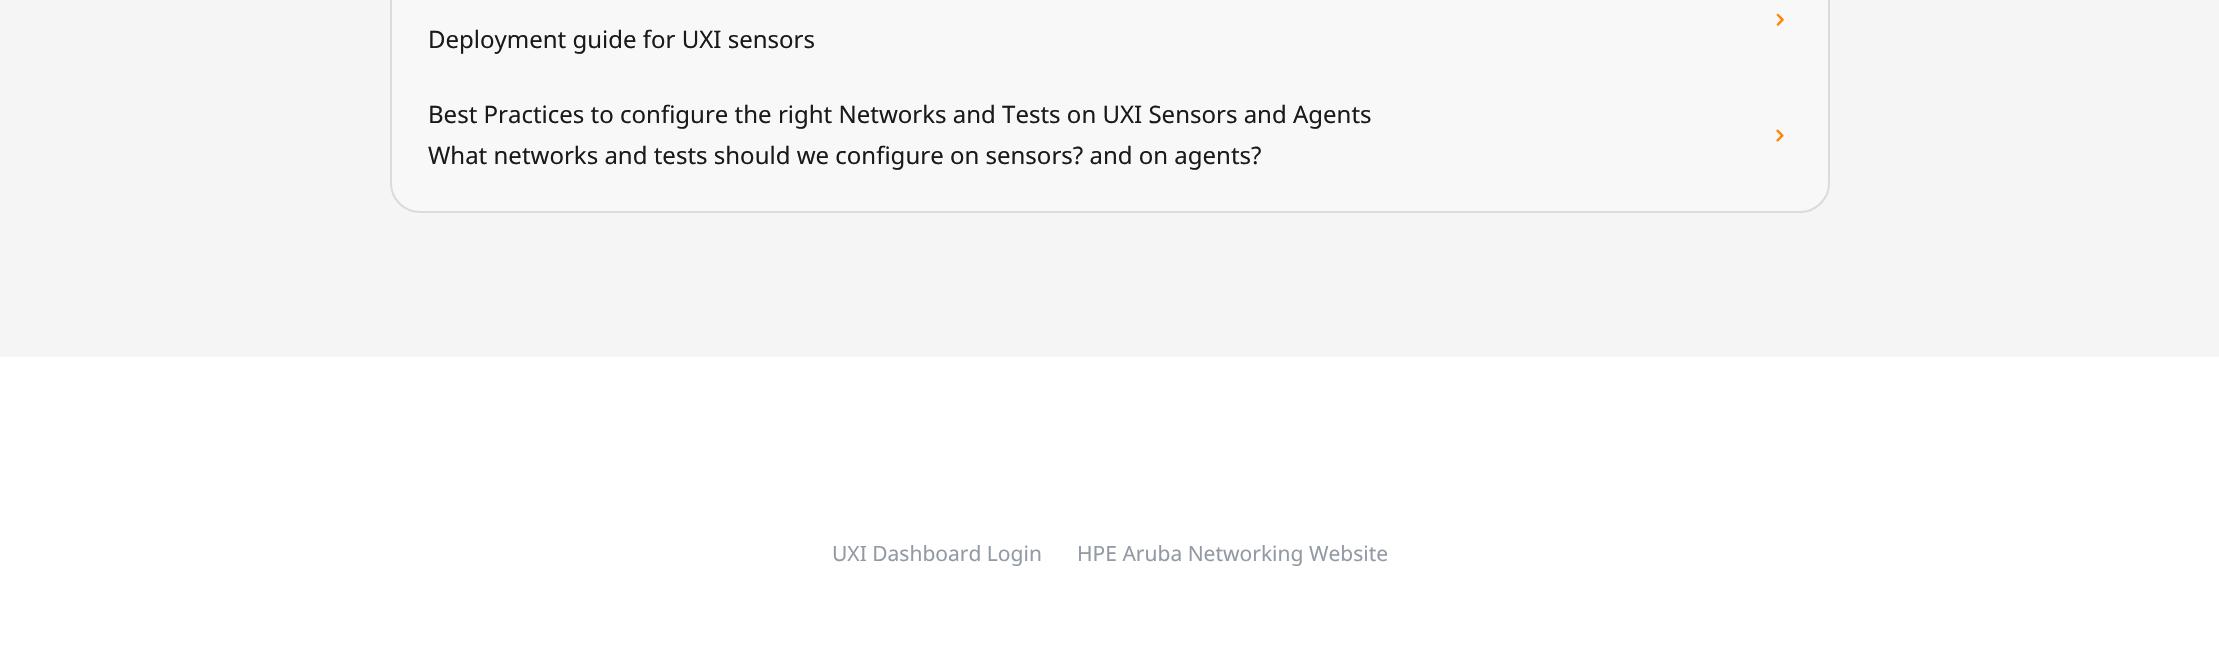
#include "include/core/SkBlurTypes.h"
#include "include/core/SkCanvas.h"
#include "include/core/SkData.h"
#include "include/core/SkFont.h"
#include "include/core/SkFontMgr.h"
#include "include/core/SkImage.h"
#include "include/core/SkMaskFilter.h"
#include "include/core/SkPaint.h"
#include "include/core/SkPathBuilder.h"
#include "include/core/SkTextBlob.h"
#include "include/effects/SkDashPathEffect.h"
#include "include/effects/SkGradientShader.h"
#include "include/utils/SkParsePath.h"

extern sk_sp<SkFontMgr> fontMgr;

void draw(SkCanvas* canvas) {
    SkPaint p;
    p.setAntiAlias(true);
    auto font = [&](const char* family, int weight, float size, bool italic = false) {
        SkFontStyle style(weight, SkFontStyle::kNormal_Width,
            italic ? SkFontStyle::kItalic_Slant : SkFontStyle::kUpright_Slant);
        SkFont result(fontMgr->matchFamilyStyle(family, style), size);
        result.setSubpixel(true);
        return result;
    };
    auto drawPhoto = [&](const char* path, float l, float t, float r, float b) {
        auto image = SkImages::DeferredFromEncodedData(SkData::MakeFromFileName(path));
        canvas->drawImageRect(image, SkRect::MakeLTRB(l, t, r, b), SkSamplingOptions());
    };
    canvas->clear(0xFFF5F5F5);
    p.setColor(0xFFF8F8F8);
    canvas->drawRoundRect(SkRect::MakeLTRB(391, -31, 1829, 212), 29, 29, p);
    p.setStyle(SkPaint::kStroke_Style);
    p.setStrokeWidth(2);
    p.setColor(0xFFDBDBDB);
    canvas->drawRoundRect(SkRect::MakeLTRB(391, -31, 1829, 212), 29, 29, p);
    drawPhoto("media/1.png", 1776, 13, 1784, 26);
    auto font1 = font("Noto Sans", 400, 24);
    p.setStyle(SkPaint::kFill_Style);
    p.setColor(0xFF1A1A1A);
    {
        const struct { const char* s; float x, y; } items[] = {
            {"Deployment guide for UXI sensors", 428, 48},
            {"Best Practices to configure the right Networks and Tests on UXI Sensors and Agents", 428, 123},
            {"What networks and tests should we configure on sensors? and on agents?", 428, 164},
        };
        for (auto [s, x, y] : items) {
            canvas->drawString(s, x, y, font1, p);
        }
    }
    drawPhoto("media/2.png", 1776, 129, 1784, 142);
    p.setColor(0xFFFFFFFF);
    canvas->drawRect(SkRect::MakeLTRB(0, 357, 2219, 665), p);
    auto font2 = font("Noto Sans", 400, 21);
    p.setColor(0xFF929BA5);
    canvas->drawString("UXI Dashboard Login", 832, 561, font2, p);
    canvas->drawString("HPE Aruba Networking Website", 1077, 561, font2, p);
}
